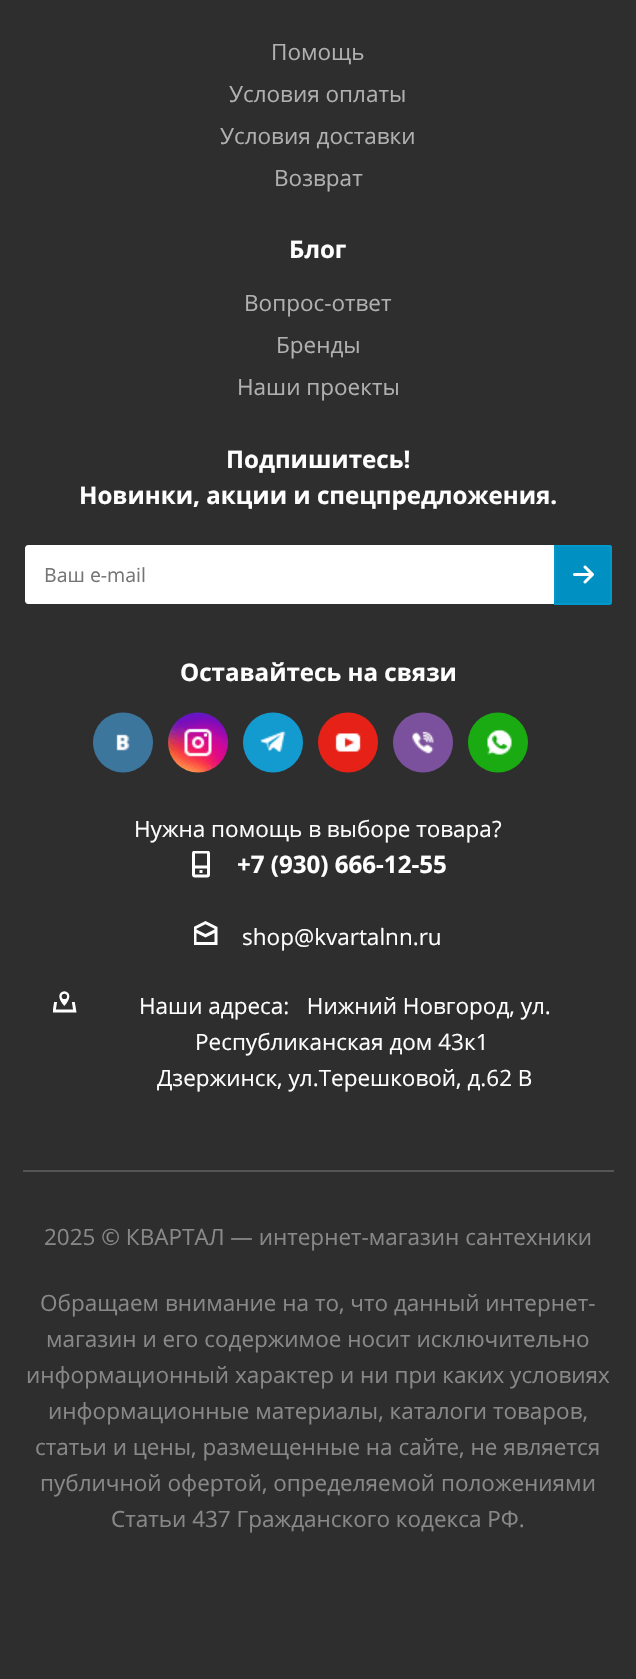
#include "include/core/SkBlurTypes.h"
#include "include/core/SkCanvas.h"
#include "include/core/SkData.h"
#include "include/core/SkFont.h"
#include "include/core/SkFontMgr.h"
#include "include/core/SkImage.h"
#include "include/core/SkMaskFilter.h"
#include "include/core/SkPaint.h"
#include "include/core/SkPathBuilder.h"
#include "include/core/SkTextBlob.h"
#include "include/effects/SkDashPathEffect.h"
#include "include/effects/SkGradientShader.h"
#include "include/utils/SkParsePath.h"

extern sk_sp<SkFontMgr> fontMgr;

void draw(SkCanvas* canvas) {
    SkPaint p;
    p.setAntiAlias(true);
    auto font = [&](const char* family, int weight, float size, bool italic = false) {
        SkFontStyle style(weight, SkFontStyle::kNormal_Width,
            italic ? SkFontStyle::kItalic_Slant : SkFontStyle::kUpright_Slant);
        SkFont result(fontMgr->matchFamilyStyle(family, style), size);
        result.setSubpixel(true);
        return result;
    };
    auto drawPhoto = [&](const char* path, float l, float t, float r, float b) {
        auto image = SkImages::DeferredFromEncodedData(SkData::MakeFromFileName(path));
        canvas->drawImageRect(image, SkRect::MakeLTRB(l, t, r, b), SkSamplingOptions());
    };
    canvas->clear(0xFF2E2E2F);
    auto font1 = font("Open Sans", 400, 22.5f);
    p.setColor(0xFFB0B0B0);
    {
        const struct { const char* s; float x, y; } items[] = {
            {"Помощь", 271, 60},
            {"Условия оплаты", 229, 102},
            {"Условия доставки", 220, 144},
            {"Возврат", 274, 186},
        };
        for (auto [s, x, y] : items) {
            canvas->drawString(s, x, y, font1, p);
        }
    }
    auto font2 = font("Open Sans", 700, 24.1f);
    p.setColor(0xFFFFFFFF);
    canvas->drawString("Блог", 289, 258, font2, p);
    p.setColor(0xFFB0B0B0);
    {
        const struct { const char* s; float x, y; } items[] = {
            {"Вопрос-ответ", 244, 311},
            {"Бренды", 276, 353},
            {"Наши проекты", 237, 395},
        };
        for (auto [s, x, y] : items) {
            canvas->drawString(s, x, y, font1, p);
        }
    }
    p.setColor(0xFFFFFFFF);
    canvas->drawString("Подпишитесь!", 226, 468, font2, p);
    canvas->drawString("Новинки, акции и спецпредложения.", 79, 504, font2, p);
    canvas->drawPath(SkPathBuilder().moveTo(28, 544).lineTo(608, 544).cubicTo(611, 544, 613, 546, 613, 549).lineTo(613, 600).cubicTo(613, 603, 611, 605, 608, 605).lineTo(28, 605).cubicTo(26, 605, 24, 603, 24, 601).lineTo(24, 548).cubicTo(24, 546, 26, 544, 28, 544).close().detach(), p);
    p.setStyle(SkPaint::kStroke_Style);
    p.setStrokeWidth(2);
    p.setColor(0xFF2E2E2F);
    canvas->drawPath(SkPathBuilder().moveTo(28, 544).lineTo(608, 544).cubicTo(611, 544, 613, 546, 613, 549).lineTo(613, 600).cubicTo(613, 603, 611, 605, 608, 605).lineTo(28, 605).cubicTo(26, 605, 24, 603, 24, 601).lineTo(24, 548).cubicTo(24, 546, 26, 544, 28, 544).close().detach(), p);
    auto font3 = font("Open Sans", 400, 19.5f);
    p.setStyle(SkPaint::kFill_Style);
    p.setColor(0xFF757575);
    canvas->drawString("Ваш e-mail", 44, 582, font3, p);
    p.setColor(0xFF0091C2);
    canvas->drawPath(SkPathBuilder().moveTo(554, 545).lineTo(609, 545).cubicTo(610.5f, 545, 612, 546.5f, 612, 548).lineTo(612, 602).cubicTo(612, 603.5f, 610.5f, 605, 609, 605).lineTo(554, 605).close().detach(), p);
    drawPhoto("media/1.png", 573, 565, 594, 584);
    p.setStyle(SkPaint::kStroke_Style);
    p.setColor(0xFF0099CC);
    canvas->drawPath(SkPathBuilder().moveTo(555, 546).lineTo(609, 546).cubicTo(610, 546, 611, 547, 611, 548).lineTo(611, 602).cubicTo(611, 603, 610, 604, 609, 604).lineTo(555, 604).close().detach(), p);
    p.setStyle(SkPaint::kFill_Style);
    p.setColor(0xFFFFFFFF);
    canvas->drawString("Оставайтесь на связи", 180, 681, font2, p);
    drawPhoto("media/2.png", 93, 712, 153, 773);
    drawPhoto("media/3.png", 167, 712, 228, 773);
    drawPhoto("media/4.png", 242, 712, 303, 773);
    drawPhoto("media/5.png", 317, 712, 379, 773);
    drawPhoto("media/6.png", 393, 712, 453, 773);
    drawPhoto("media/7.png", 467, 712, 528, 773);
    canvas->drawString("Нужна помощь в выборе товара?", 134, 837, font1, p);
    drawPhoto("media/8.png", 192, 851, 210, 878);
    canvas->drawString("+7 (930) 666-12-55", 237, 873, font2, p);
    drawPhoto("media/9.png", 194, 921, 218, 945);
    canvas->drawString("shop@kvartalnn.ru", 242, 945, font1, p);
    drawPhoto("media/10.png", 53, 991, 77, 1013);
    {
        const struct { const char* s; float x, y; } items[] = {
            {"Наши адреса:   Нижний Новгород, ул.", 139, 1014},
            {"Республиканская дом 43к1", 195, 1050},
            {"Дзержинск, ул.Терешковой, д.62 В", 157, 1086},
        };
        for (auto [s, x, y] : items) {
            canvas->drawString(s, x, y, font1, p);
        }
    }
    p.setColor(0xFF555555);
    canvas->drawRect(SkRect::MakeLTRB(23, 1170, 614, 1172), p);
    p.setColor(0xFF888888);
    {
        const struct { const char* s; float x, y; } items[] = {
            {"2025 © КВАРТАЛ — интернет-магазин сантехники", 44, 1245},
            {"Обращаем внимание на то, что данный интернет-", 40, 1311},
            {"магазин и его содержимое носит исключительно", 46, 1347},
            {"информационный характер и ни при каких условиях", 26, 1383},
            {"информационные материалы, каталоги товаров,", 48, 1419},
            {"статьи и цены, размещенные на сайте, не является", 35, 1455},
            {"публичной офертой, определяемой положениями", 40, 1491},
            {"Статьи 437 Гражданского кодекса РФ.", 111, 1527},
        };
        for (auto [s, x, y] : items) {
            canvas->drawString(s, x, y, font1, p);
        }
    }
}
